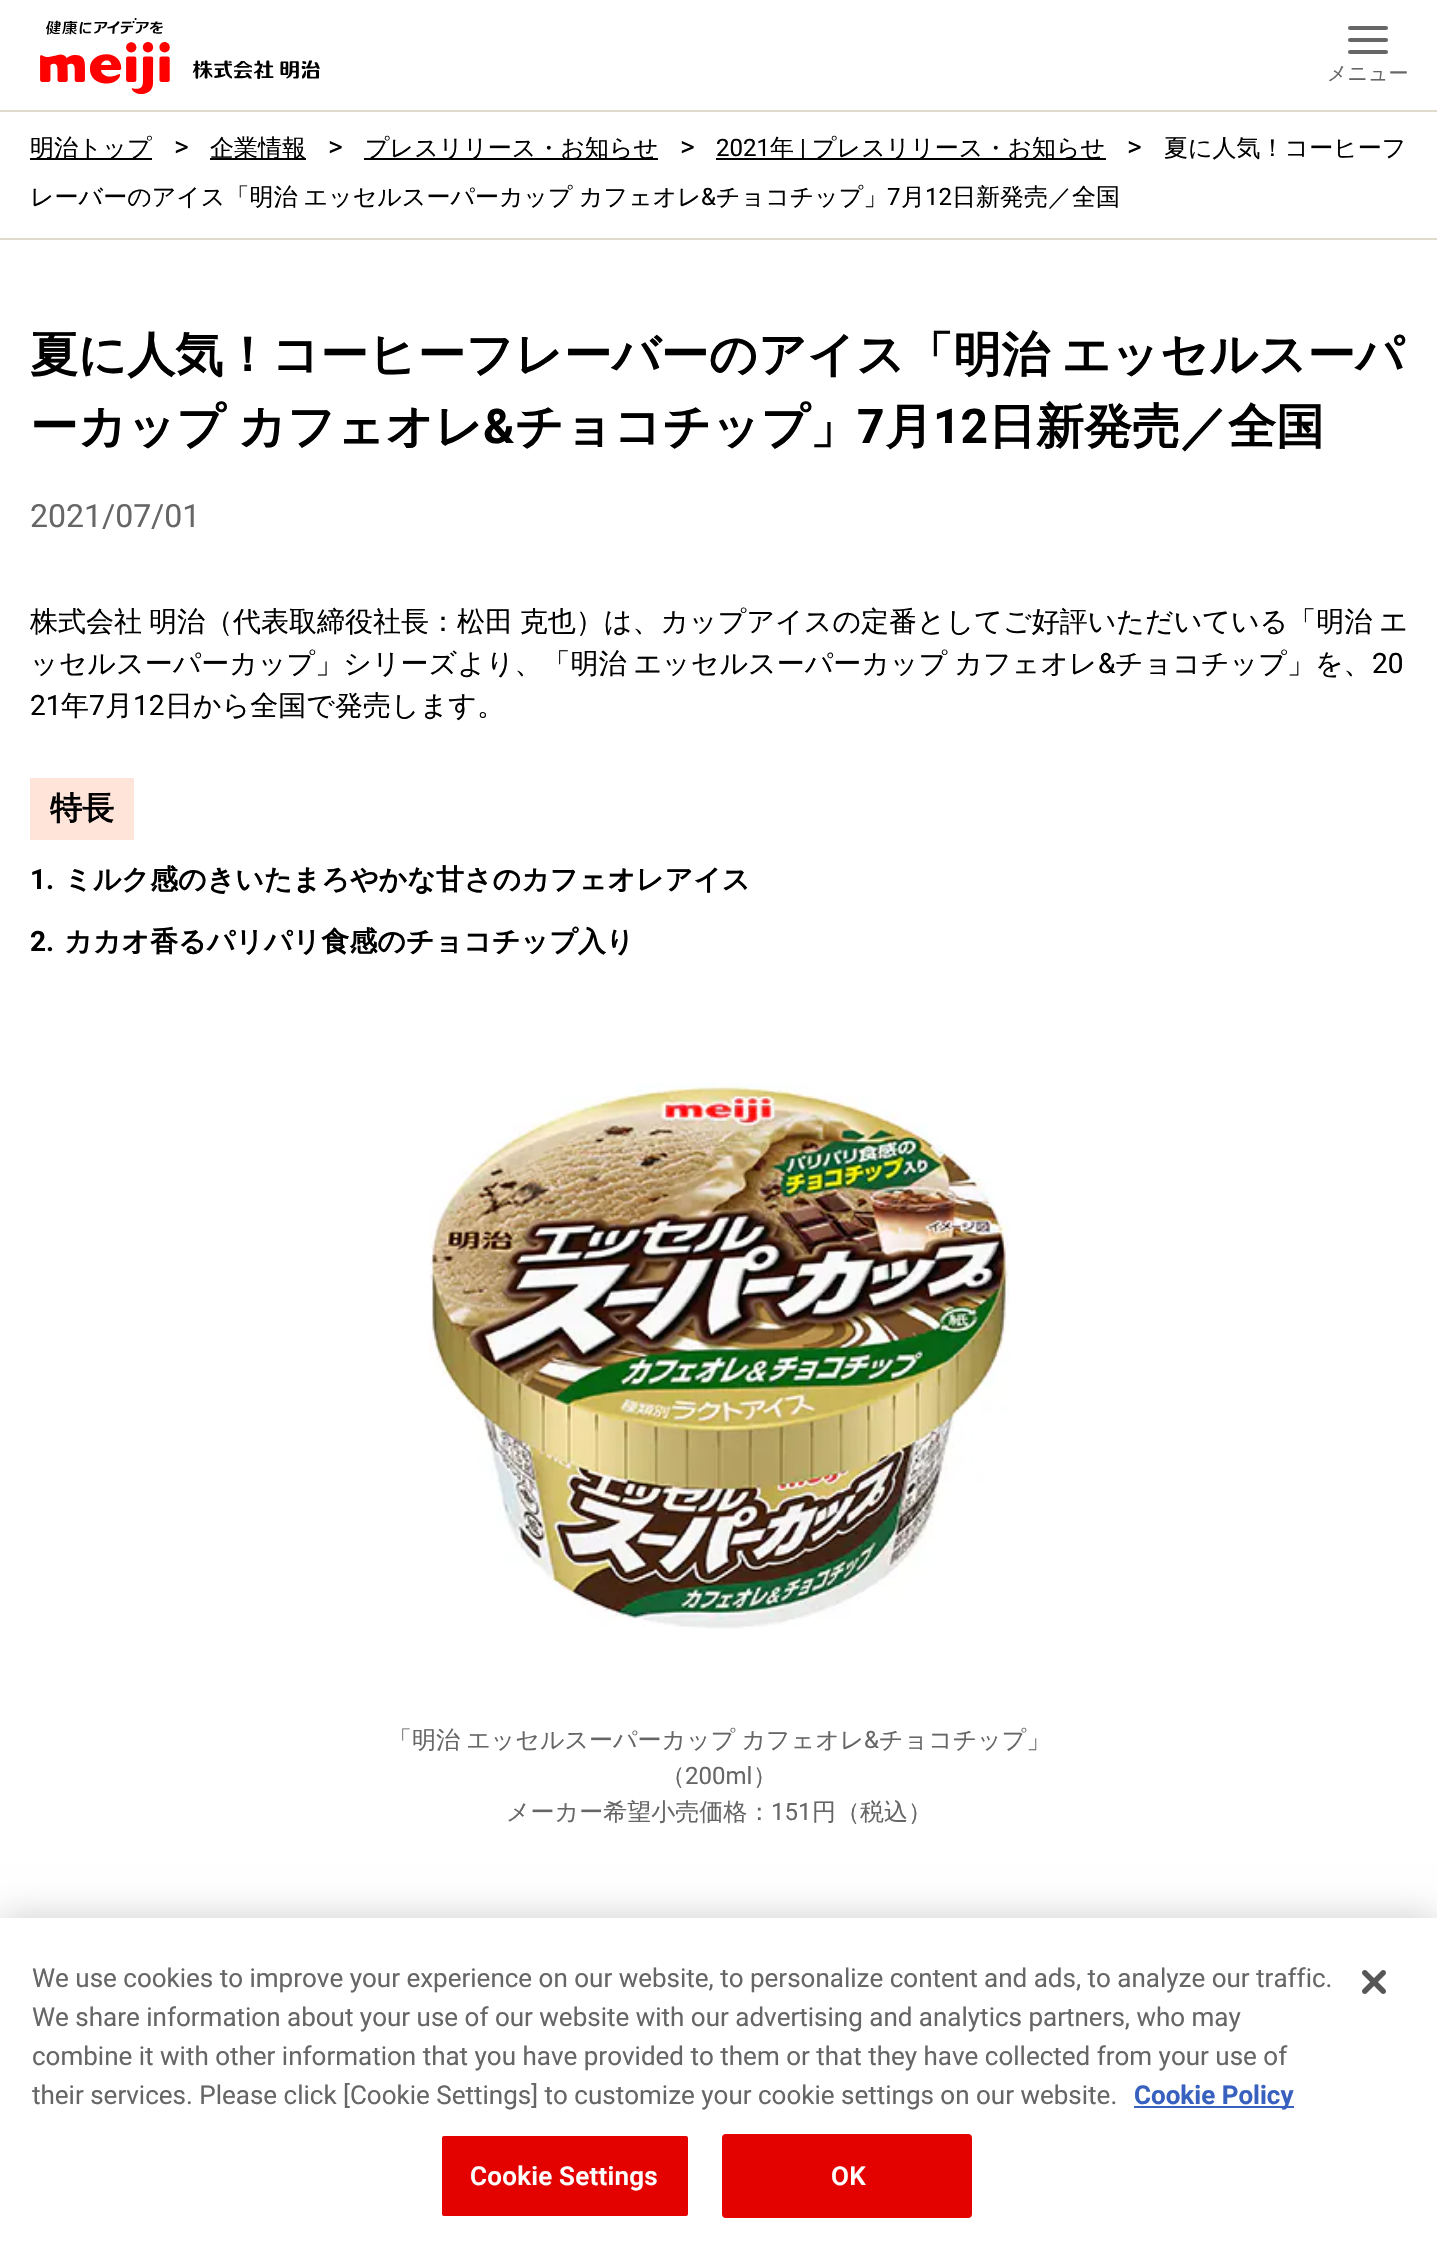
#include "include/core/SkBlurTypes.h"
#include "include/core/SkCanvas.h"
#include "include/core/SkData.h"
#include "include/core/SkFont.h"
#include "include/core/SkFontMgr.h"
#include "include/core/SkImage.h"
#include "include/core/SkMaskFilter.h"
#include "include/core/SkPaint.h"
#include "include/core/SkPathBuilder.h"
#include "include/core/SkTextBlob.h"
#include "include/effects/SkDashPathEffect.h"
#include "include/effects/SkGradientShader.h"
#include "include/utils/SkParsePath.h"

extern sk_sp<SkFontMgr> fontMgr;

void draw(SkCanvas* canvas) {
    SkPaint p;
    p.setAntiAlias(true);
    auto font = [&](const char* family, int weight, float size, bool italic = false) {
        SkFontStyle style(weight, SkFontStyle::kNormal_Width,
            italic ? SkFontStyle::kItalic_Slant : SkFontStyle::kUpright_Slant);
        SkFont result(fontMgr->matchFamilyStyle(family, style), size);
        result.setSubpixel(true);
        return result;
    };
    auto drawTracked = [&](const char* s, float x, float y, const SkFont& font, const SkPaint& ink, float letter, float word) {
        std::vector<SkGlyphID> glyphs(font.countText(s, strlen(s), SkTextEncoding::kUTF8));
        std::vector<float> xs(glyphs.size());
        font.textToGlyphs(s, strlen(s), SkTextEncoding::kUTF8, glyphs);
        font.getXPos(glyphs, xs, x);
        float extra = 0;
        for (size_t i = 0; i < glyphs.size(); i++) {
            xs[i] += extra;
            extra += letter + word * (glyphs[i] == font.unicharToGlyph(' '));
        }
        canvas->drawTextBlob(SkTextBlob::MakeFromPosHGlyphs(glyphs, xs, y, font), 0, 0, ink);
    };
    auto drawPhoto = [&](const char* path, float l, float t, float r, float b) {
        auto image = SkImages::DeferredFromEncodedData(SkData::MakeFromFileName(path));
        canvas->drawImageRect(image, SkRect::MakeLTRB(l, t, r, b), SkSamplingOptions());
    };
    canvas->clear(0xFFFFFFFF);
    p.setColor(0xFFDFDACB);
    canvas->drawRect(SkRect::MakeLTRB(0, 110, 1437, 112), p);
    drawPhoto("media/1.png", 40, 18, 320, 94);
    p.setColor(0xFF666666);
    canvas->drawRoundRect(SkRect::MakeLTRB(1348, 26, 1388, 30), 2, 2, p);
    canvas->drawRoundRect(SkRect::MakeLTRB(1348, 38, 1388, 42), 2, 2, p);
    canvas->drawRoundRect(SkRect::MakeLTRB(1348, 50, 1388, 54), 2, 2, p);
    auto font1 = font("WenQuanYi Zen Hei", 500, 20);
    canvas->drawString("メニュー", 1327, 80, font1, p);
    p.setColor(0xFFDFDACB);
    canvas->drawRect(SkRect::MakeLTRB(0, 238, 1437, 240), p);
    p.setColor(0xFF000000);
    canvas->drawRect(SkRect::MakeLTRB(30, 158, 152, 160), p);
    auto font2 = font("WenQuanYi Zen Hei", 500, 24);
    canvas->drawString("明治トップ", 30, 156, font2, p);
    auto font3 = font("Roboto", 400, 28);
    canvas->drawString(">", 174, 156, font3, p);
    canvas->drawRect(SkRect::MakeLTRB(210, 158, 306, 160), p);
    canvas->drawString("企業情報", 210, 156, font2, p);
    canvas->drawString(">", 328, 156, font3, p);
    canvas->drawRect(SkRect::MakeLTRB(364, 158, 658, 160), p);
    canvas->drawString("プレスリリース・お知らせ", 365, 156, font2, p);
    canvas->drawString(">", 680, 156, font3, p);
    auto font4 = font("Roboto", 400, 24);
    canvas->drawString("2021", 716, 156, font4, p);
    canvas->drawRect(SkRect::MakeLTRB(716, 158, 1106, 160), p);
    canvas->drawString("年", 770, 156, font2, p);
    canvas->drawString("|", 800, 156, font4, p);
    canvas->drawString("プレスリリース・お知らせ", 812, 156, font2, p);
    canvas->drawString(">", 1127, 156, font3, p);
    canvas->drawString("夏に人気！コーヒーフ", 1164, 156, font2, p);
    drawTracked("レーバーのアイス「明治 エッセルスーパーカップ カフェオレ", 30, 205, font2, p, 0, -1);
    canvas->drawString("&", 701, 205, font4, p);
    canvas->drawString("チョコチップ」", 716, 205, font2, p);
    canvas->drawString("7", 887, 205, font4, p);
    canvas->drawString("月", 901, 205, font2, p);
    canvas->drawString("12", 925, 205, font4, p);
    canvas->drawString("日新発売／全国", 952, 205, font2, p);
    auto font5 = font("WenQuanYi Zen Hei", 700, 48);
    drawTracked("夏に人気！コーヒーフレーバーのアイス「明治 エッセルスーパ", 30, 371, font5, p, 0, -2);
    drawTracked("ーカップ カフェオレ", 30, 443, font5, p, 0, -2);
    auto font6 = font("Roboto", 700, 48);
    canvas->drawString("&", 483, 443, font6, p);
    canvas->drawString("チョコチップ」", 515, 443, font5, p);
    canvas->drawString("7", 857, 443, font6, p);
    canvas->drawString("月", 885, 443, font5, p);
    canvas->drawString("12", 933, 443, font6, p);
    canvas->drawString("日新発売／全国", 988, 443, font5, p);
    auto font7 = font("Roboto", 400, 32);
    p.setColor(0xFF666666);
    canvas->drawString("2021/07/01", 30, 527, font7, p);
    auto font8 = font("WenQuanYi Zen Hei", 500, 28);
    p.setColor(0xFF000000);
    drawTracked("株式会社 明治（代表取締役社長：松田 克也）は、カップアイスの定番としてご好評いただいている「明治 エ", 30, 631, font8, p, 0, -1.5f);
    drawTracked("ッセルスーパーカップ」シリーズより、「明治 エッセルスーパーカップ カフェオレ", 30, 673, font8, p, 0, -1.5f);
    canvas->drawString("&", 1098, 673, font3, p);
    canvas->drawString("チョコチップ」を、", 1115, 673, font8, p);
    canvas->drawString("20", 1372, 673, font3, p);
    canvas->drawString("21", 30, 715, font3, p);
    canvas->drawString("年", 61, 715, font8, p);
    canvas->drawString("7", 89, 715, font3, p);
    canvas->drawString("月", 105, 715, font8, p);
    canvas->drawString("12", 133, 715, font3, p);
    canvas->drawString("日から全国で発売します。", 165, 715, font8, p);
    p.setColor(0xFFFFE4DA);
    canvas->drawRect(SkRect::MakeLTRB(30, 778, 134, 840), p);
    auto font9 = font("WenQuanYi Zen Hei", 700, 32);
    p.setColor(0xFF000000);
    canvas->drawString("特長", 50, 819, font9, p);
    auto font10 = font("Roboto", 700, 28);
    canvas->drawString("1.", 30, 889, font10, p);
    auto font11 = font("WenQuanYi Zen Hei", 700, 28);
    canvas->drawString("ミルク感のきいたまろやかな甘さのカフェオレアイス", 64, 889, font11, p);
    canvas->drawString("2.", 30, 951, font10, p);
    canvas->drawString("カカオ香るパリパリ食感のチョコチップ入り", 64, 951, font11, p);
    drawPhoto("media/2.png", 429, 1083, 1010, 1629);
    p.setColor(0xFF666666);
    drawTracked("「明治 エッセルスーパーカップ カフェオレ", 388, 1748, font2, p, 0, -1);
    canvas->drawString("&", 864, 1748, font4, p);
    canvas->drawString("チョコチップ」", 879, 1748, font2, p);
    canvas->drawString("（", 661, 1784, font2, p);
    canvas->drawString("200ml", 685, 1784, font4, p);
    canvas->drawString("）", 753, 1784, font2, p);
    canvas->drawString("メーカー希望小売価格：", 506, 1820, font2, p);
    canvas->drawString("151", 771, 1820, font4, p);
    canvas->drawString("円（税込）", 812, 1820, font2, p);
    p.setColor(0x33000000);
    p.setMaskFilter(SkMaskFilter::MakeBlur(kNormal_SkBlurStyle, 18));
    canvas->drawRect(SkRect::MakeLTRB(0, 1918, 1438, 2250), p);
    p.setMaskFilter(nullptr);
    p.setColor(0xFFFFFFFF);
    canvas->drawRect(SkRect::MakeLTRB(0, 1918, 1437, 2250), p);
    auto font12 = font("Roboto", 400, 26);
    p.setColor(0xFF666666);
    {
        const struct { const char* s; float x, y; } items[] = {
            {"We use cookies to improve your experience on our website, to personalize content and ads, to analyze our traffic.", 32, 1987},
            {"We share information about your use of our website with our advertising and analytics partners, who may", 32, 2026},
            {"combine it with other information that you have provided to them or that they have collected from your use of", 32, 2065},
            {"their services. Please click [Cookie Settings] to customize your cookie settings on our website.", 32, 2104},
        };
        for (auto [s, x, y] : items) {
            canvas->drawString(s, x, y, font12, p);
        }
    }
    p.setColor(0xFF3860BE);
    canvas->drawRect(SkRect::MakeLTRB(1134, 2106, 1294, 2108), p);
    auto font13 = font("Roboto", 700, 26);
    canvas->drawString("Cookie Policy", 1134, 2104, font13, p);
    p.setColor(0xFFE30200);
    canvas->drawRoundRect(SkRect::MakeLTRB(441, 2135, 689, 2217), 3, 3, p);
    p.setStyle(SkPaint::kStroke_Style);
    p.setStrokeWidth(2);
    p.setColor(0xFFFFFFFF);
    canvas->drawRoundRect(SkRect::MakeLTRB(441, 2135, 689, 2217), 3, 3, p);
    auto font14 = font("Roboto", 600, 26);
    p.setStyle(SkPaint::kFill_Style);
    drawTracked("Cookie Settings", 470, 2185, font14, p, 0.25f, 0);
    p.setColor(0xFFE30200);
    canvas->drawRoundRect(SkRect::MakeLTRB(723, 2135, 971, 2217), 3, 3, p);
    p.setStyle(SkPaint::kStroke_Style);
    canvas->drawRoundRect(SkRect::MakeLTRB(723, 2135, 971, 2217), 3, 3, p);
    p.setStyle(SkPaint::kFill_Style);
    p.setColor(0xFFFFFFFF);
    drawTracked("OK", 831, 2185, font14, p, 0.25f, 0);
    drawPhoto("media/3.png", 1362, 1970, 1386, 1994);
}
